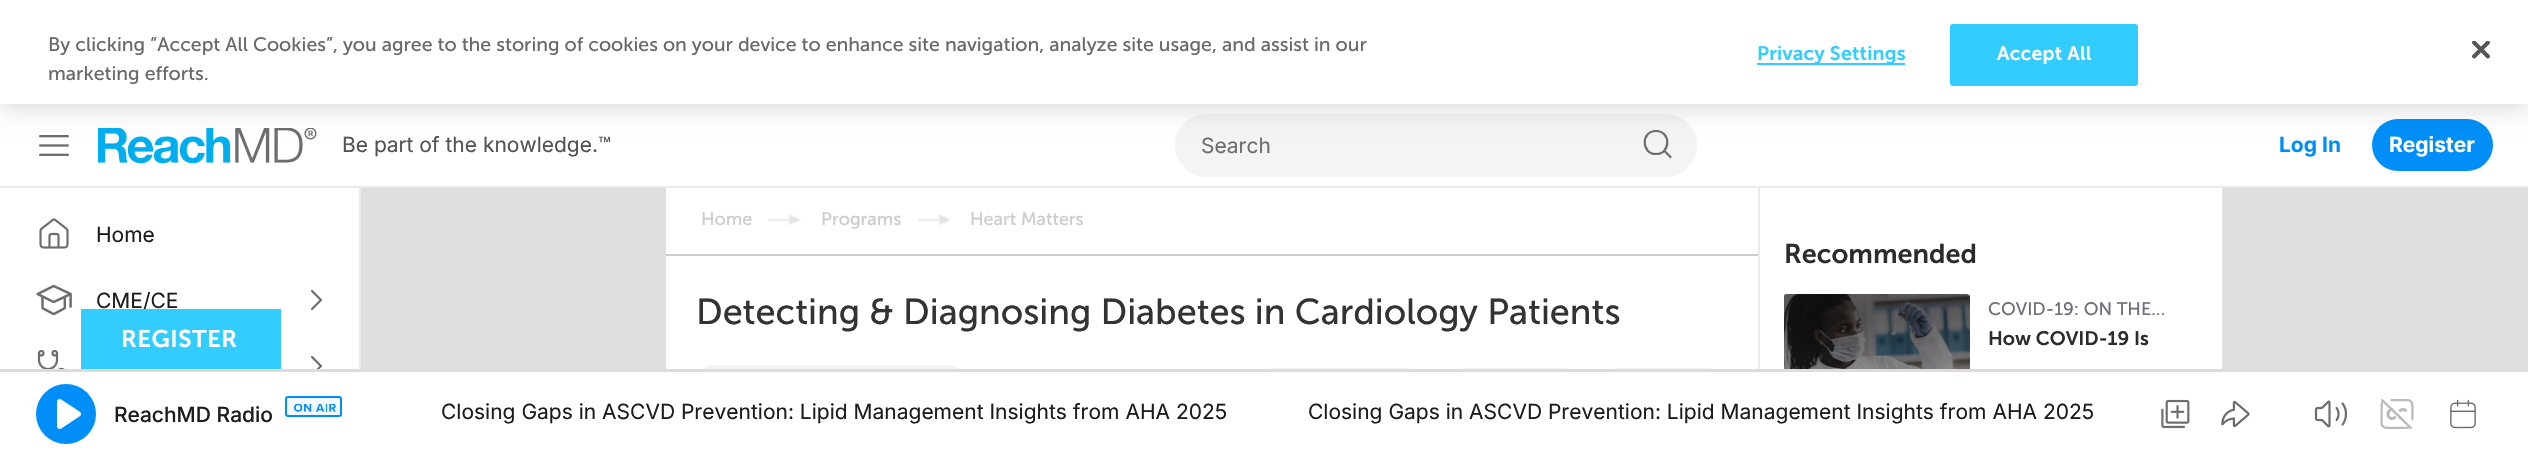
#include "include/core/SkBlurTypes.h"
#include "include/core/SkCanvas.h"
#include "include/core/SkData.h"
#include "include/core/SkFont.h"
#include "include/core/SkFontMgr.h"
#include "include/core/SkImage.h"
#include "include/core/SkMaskFilter.h"
#include "include/core/SkPaint.h"
#include "include/core/SkPathBuilder.h"
#include "include/core/SkTextBlob.h"
#include "include/effects/SkDashPathEffect.h"
#include "include/effects/SkGradientShader.h"
#include "include/utils/SkParsePath.h"

extern sk_sp<SkFontMgr> fontMgr;

void draw(SkCanvas* canvas) {
    SkPaint p;
    p.setAntiAlias(true);
    auto font = [&](const char* family, int weight, float size, bool italic = false) {
        SkFontStyle style(weight, SkFontStyle::kNormal_Width,
            italic ? SkFontStyle::kItalic_Slant : SkFontStyle::kUpright_Slant);
        SkFont result(fontMgr->matchFamilyStyle(family, style), size);
        result.setSubpixel(true);
        return result;
    };
    auto drawTracked = [&](const char* s, float x, float y, const SkFont& font, const SkPaint& ink, float letter, float word) {
        std::vector<SkGlyphID> glyphs(font.countText(s, strlen(s), SkTextEncoding::kUTF8));
        std::vector<float> xs(glyphs.size());
        font.textToGlyphs(s, strlen(s), SkTextEncoding::kUTF8, glyphs);
        font.getXPos(glyphs, xs, x);
        float extra = 0;
        for (size_t i = 0; i < glyphs.size(); i++) {
            xs[i] += extra;
            extra += letter + word * (glyphs[i] == font.unicharToGlyph(' '));
        }
        canvas->drawTextBlob(SkTextBlob::MakeFromPosHGlyphs(glyphs, xs, y, font), 0, 0, ink);
    };
    auto drawPhoto = [&](const char* path, float l, float t, float r, float b) {
        auto image = SkImages::DeferredFromEncodedData(SkData::MakeFromFileName(path));
        canvas->drawImageRect(image, SkRect::MakeLTRB(l, t, r, b), SkSamplingOptions());
    };
    canvas->clear(0xFFDFDEDE);
    p.setColor(0xFFFFFFFF);
    canvas->drawRect(SkRect::MakeLTRB(0, 104, 2528, 186), p);
    drawPhoto("media/2.png", 39, 135, 69, 156);
    drawPhoto("media/3.png", 98, 128, 317, 164);
    p.setColor(0xFFF4F4F3);
    canvas->drawPath(SkPathBuilder().moveTo(1206.5f, 114).lineTo(1625, 114).lineTo(1625, 177).lineTo(1206.5f, 177).cubicTo(1189, 177, 1175, 163, 1175, 145.5f).cubicTo(1175, 128, 1189, 114, 1206.5f, 114).close().detach(), p);
    canvas->drawPath(SkPathBuilder().moveTo(1625, 114).lineTo(1665.5f, 114).cubicTo(1683, 114, 1697, 128, 1697, 145.5f).cubicTo(1697, 163, 1683, 177, 1665.5f, 177).lineTo(1625, 177).close().detach(), p);
    p.setStyle(SkPaint::kStroke_Style);
    p.setStrokeWidth(2.2f);
    p.setStrokeCap(SkPaint::kRound_Cap);
    p.setStrokeJoin(SkPaint::kRound_Join);
    p.setColor(0xFF6C6C72);
    canvas->drawPath(SkPathBuilder().moveTo(1656, 154).cubicTo(1671, 154, 1671, 131, 1656, 131).cubicTo(1641, 131, 1641, 154, 1656, 154).close().moveTo(1670.5f, 157).lineTo(1664, 150.5f).detach(), p);
    p.setStyle(SkPaint::kFill_Style);
    p.setColor(0xFF008FF8);
    canvas->drawRoundRect(SkRect::MakeLTRB(2372, 119, 2493, 171), 26, 26, p);
    p.setColor(0x33000000);
    p.setMaskFilter(SkMaskFilter::MakeBlur(kNormal_SkBlurStyle, 13.5f));
    canvas->drawRect(SkRect::MakeLTRB(0, 0, 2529, 104), p);
    p.setMaskFilter(nullptr);
    p.setColor(0xFFFFFFFF);
    canvas->drawRect(SkRect::MakeLTRB(0, 0, 2528, 104), p);
    auto font1 = font("Museo Sans", 400, 19.5f);
    p.setColor(0xFF696969);
    canvas->drawString("By clicking “Accept All Cookies”, you agree to the storing of cookies on your device to enhance site navigation, analyze site usage, and assist in our", 48, 51, font1, p);
    canvas->drawString("marketing efforts.", 48, 80, font1, p);
    p.setColor(0xFF33CCFF);
    canvas->drawRect(SkRect::MakeLTRB(1757, 63, 1905, 65), p);
    auto font2 = font("Museo Sans", 600, 19.5f);
    drawTracked("Privacy Settings", 1757, 60, font2, p, 0.25f, 0);
    canvas->drawRoundRect(SkRect::MakeLTRB(1951, 25, 2137, 85), 2, 2, p);
    p.setStyle(SkPaint::kStroke_Style);
    p.setStrokeWidth(2);
    p.setStrokeCap(SkPaint::kButt_Cap);
    p.setStrokeJoin(SkPaint::kMiter_Join);
    canvas->drawRoundRect(SkRect::MakeLTRB(1951, 25, 2137, 85), 2, 2, p);
    p.setStyle(SkPaint::kFill_Style);
    p.setColor(0xFFFFFFFF);
    drawTracked("Accept All", 1997, 60, font2, p, 0.25f, 0);
    drawPhoto("media/1.png", 2472, 41, 2490, 59);
    {
        const struct { float l, t, r, b; SkColor color; } items[] = {
            {359, 186, 361, 369, 0xFFEAEAEA},
            {2222, 186, 2223, 369, 0xFFEAEAEA},
            {1758, 186, 1760, 369, 0xFFEAEAEA},
            {0, 186, 2528, 188, 0xFFEAEAEA},
        };
        for (auto [l, t, r, b, color] : items) {
            p.setColor(color);
            canvas->drawRect(SkRect::MakeLTRB(l, t, r, b), p);
        }
    }
    auto font3 = font("Inter", 400, 21);
    p.setColor(0xFF525257);
    canvas->drawString("Be part of the knowledge.™", 342, 152, font3, p);
    p.setColor(0xFF6C6C72);
    canvas->drawString("Search", 1201, 153, font3, p);
    auto font4 = font("Inter", 700, 21);
    p.setColor(0xFF008FF8);
    canvas->drawString("Log In", 2279, 152, font4, p);
    p.setColor(0xFFFFFFFF);
    canvas->drawString("Register", 2389, 152, font4, p);
    canvas->drawRect(SkRect::MakeLTRB(0, 188, 359, 369), p);
    drawPhoto("media/4.png", 39, 218, 69, 249);
    p.setColor(0xFF1C1C1C);
    canvas->drawString("Home", 96, 242, font3, p);
    drawPhoto("media/5.png", 36, 284, 72, 316);
    canvas->drawString("CME/CE", 96, 308, font3, p);
    p.setStyle(SkPaint::kStroke_Style);
    p.setStrokeWidth(2.2f);
    p.setStrokeCap(SkPaint::kRound_Cap);
    p.setStrokeJoin(SkPaint::kRound_Join);
    p.setColor(0xFF6C6C72);
    canvas->drawPath(SkPathBuilder().moveTo(312, 309).lineTo(321, 300).lineTo(312, 291).detach(), p);
    drawPhoto("media/6.png", 37, 349, 65, 369);
    canvas->drawPath(SkPathBuilder().moveTo(312, 375).lineTo(321, 366).lineTo(312, 357).detach(), p);
    p.setStyle(SkPaint::kFill_Style);
    p.setColor(0xFFFFFFFF);
    canvas->drawRect(SkRect::MakeLTRB(666, 188, 1758, 369), p);
    p.setColor(0xFFCCCCCC);
    canvas->drawRect(SkRect::MakeLTRB(666, 254, 1758, 256), p);
    auto font5 = font("Museo Sans", 400, 18);
    canvas->drawString("Home", 701, 225, font5, p);
    drawPhoto("media/7.png", 768, 214, 801, 226);
    canvas->drawString("Programs", 821, 225, font5, p);
    drawPhoto("media/7.png", 918, 214, 951, 226);
    canvas->drawString("Heart Matters", 970, 225, font5, p);
    auto font6 = font("Museo Sans", 400, 36);
    p.setColor(0xFF333333);
    canvas->drawString("Detecting & Diagnosing Diabetes in Cardiology Patients", 696, 324, font6, p);
    p.setColor(0xFFF4F4F3);
    canvas->drawPath(SkPathBuilder().moveTo(714, 365).lineTo(948, 365).cubicTo(958, 365, 966, 373, 966, 383).lineTo(966, 369).lineTo(696, 369).lineTo(696, 383).cubicTo(696, 373, 704, 365, 714, 365).close().detach(), p);
    canvas->drawPath(SkPathBuilder().moveTo(1274, 368).lineTo(1406, 368).cubicTo(1419.5f, 368, 1430, 378.5f, 1430, 392).lineTo(1430, 369).lineTo(1250, 369).lineTo(1250, 392).cubicTo(1250, 378.5f, 1260.5f, 368, 1274, 368).close().detach(), p);
    canvas->drawPath(SkPathBuilder().moveTo(1466, 368).lineTo(1560, 368).cubicTo(1573.5f, 368, 1584, 378.5f, 1584, 392).lineTo(1584, 369).lineTo(1442, 369).lineTo(1442, 392).cubicTo(1442, 378.5f, 1452.5f, 368, 1466, 368).close().detach(), p);
    canvas->drawPath(SkPathBuilder().moveTo(1620, 368).lineTo(1704, 368).cubicTo(1717.5f, 368, 1728, 378.5f, 1728, 392).lineTo(1728, 369).lineTo(1596, 369).lineTo(1596, 392).cubicTo(1596, 378.5f, 1606.5f, 368, 1620, 368).close().detach(), p);
    p.setColor(0xFFFFFFFF);
    canvas->drawRect(SkRect::MakeLTRB(1760, 188, 2222, 369), p);
    auto font7 = font("Museo Sans", 600, 27);
    p.setColor(0xFF2C2C2C);
    canvas->drawString("Recommended", 1784, 263, font7, p);
    drawPhoto("media/8.png", 1784, 294, 1970, 369);
    p.setColor(0xFF6C6E79);
    canvas->drawString("COVID-19: ON THE…", 1988, 315, font5, p);
    p.setColor(0xFF2C2C2C);
    canvas->drawString("How COVID-19 Is", 1988, 345, font2, p);
    p.setColor(0xFF33CCFF);
    canvas->drawRect(SkRect::MakeLTRB(81, 309, 281, 369), p);
    auto font8 = font("Museo Sans", 600, 24);
    p.setColor(0xFFFFFFFF);
    drawTracked("REGISTER", 121, 347, font8, p, 0.5f, 0);
    canvas->drawRect(SkRect::MakeLTRB(0, 372, 2528, 455), p);
    p.setColor(0xFFDCDCDC);
    canvas->drawRect(SkRect::MakeLTRB(0, 369, 2528, 372), p);
    p.setColor(0xFF008FF8);
    canvas->drawCircle(66, 414, 30, p);
    drawPhoto("media/9.png", 57, 399, 81, 429);
    auto font9 = font("Inter", 500, 21);
    p.setColor(0xFF1C1C1C);
    canvas->drawString("ReachMD Radio", 114, 422, font9, p);
    p.setColor(0xFFF4FAFF);
    canvas->drawRoundRect(SkRect::MakeLTRB(286, 397, 341, 416), 2, 2, p);
    p.setStyle(SkPaint::kStroke_Style);
    p.setStrokeWidth(2);
    p.setStrokeCap(SkPaint::kButt_Cap);
    p.setStrokeJoin(SkPaint::kMiter_Join);
    p.setColor(0xFF008FF8);
    canvas->drawRoundRect(SkRect::MakeLTRB(286, 397, 341, 416), 2, 2, p);
    drawPhoto("media/10.png", 294, 404, 336, 412);
    p.setStyle(SkPaint::kFill_Style);
    p.setColor(0xFF1C1C1C);
    canvas->drawString("Closing Gaps in ASCVD Prevention: Lipid Management Insights from AHA 2025", 441, 419, font3, p);
    canvas->drawString("Closing Gaps in ASCVD Prevention: Lipid Management Insights from AHA 2025", 1308, 419, font3, p);
    drawPhoto("media/11.png", 2161, 399, 2190, 429);
    drawPhoto("media/12.png", 2221, 400, 2250, 428);
    drawPhoto("media/13.png", 2314, 400, 2348, 428);
    drawPhoto("media/14.png", 2380, 399, 2414, 429);
    drawPhoto("media/15.png", 2450, 399, 2476, 429);
}
